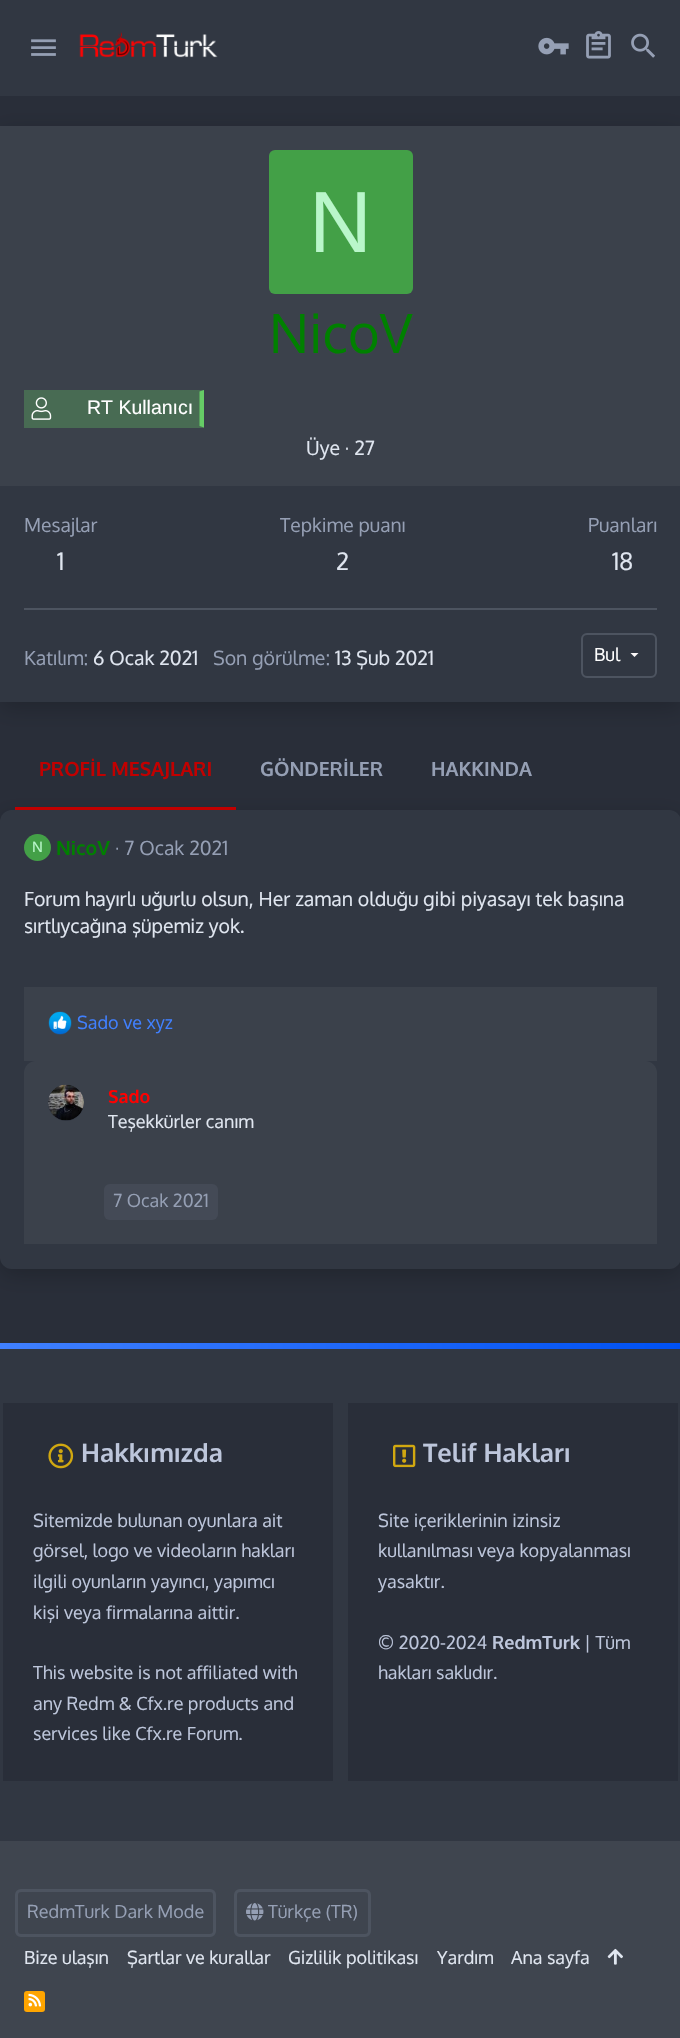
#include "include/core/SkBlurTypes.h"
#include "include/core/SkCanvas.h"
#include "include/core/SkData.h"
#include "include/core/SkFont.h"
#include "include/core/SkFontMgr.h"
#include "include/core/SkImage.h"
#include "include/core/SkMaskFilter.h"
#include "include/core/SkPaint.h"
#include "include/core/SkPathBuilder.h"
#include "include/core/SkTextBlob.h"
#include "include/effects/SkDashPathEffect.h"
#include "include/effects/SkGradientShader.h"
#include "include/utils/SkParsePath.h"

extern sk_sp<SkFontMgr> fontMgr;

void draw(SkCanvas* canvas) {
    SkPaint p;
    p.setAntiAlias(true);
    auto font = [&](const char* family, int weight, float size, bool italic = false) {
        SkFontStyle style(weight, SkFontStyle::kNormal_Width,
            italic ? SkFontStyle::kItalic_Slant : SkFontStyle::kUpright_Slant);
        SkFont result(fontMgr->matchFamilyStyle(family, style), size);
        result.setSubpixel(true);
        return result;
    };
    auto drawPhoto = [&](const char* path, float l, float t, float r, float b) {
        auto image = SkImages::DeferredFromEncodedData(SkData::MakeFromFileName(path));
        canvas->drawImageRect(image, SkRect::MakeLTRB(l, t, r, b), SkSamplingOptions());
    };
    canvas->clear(0xFF292E39);
    p.setColor(0xFF313742);
    canvas->drawRect(SkRect::MakeLTRB(0, 0, 680, 96), p);
    drawPhoto("media/1.png", 31, 39, 56, 56);
    drawPhoto("media/2.png", 79, 31, 218, 58);
    drawPhoto("media/3.png", 538, 37, 569, 55);
    drawPhoto("media/4.png", 586, 31, 611, 59);
    drawPhoto("media/5.png", 631, 33, 655, 58);
    p.setColor(0x33000000);
    p.setMaskFilter(SkMaskFilter::MakeBlur(kNormal_SkBlurStyle, 11));
    canvas->drawRect(SkRect::MakeLTRB(0, 132, 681, 708), p);
    p.setMaskFilter(nullptr);
    p.setColor(0xFF313742);
    canvas->drawRect(SkRect::MakeLTRB(0, 486, 680, 702), p);
    p.setColor(0xFF3B414B);
    canvas->drawRect(SkRect::MakeLTRB(0, 126, 680, 486), p);
    p.setColor(0xFF43A047);
    canvas->drawRoundRect(SkRect::MakeLTRB(269, 150, 413, 294), 6, 6, p);
    auto font1 = font("Liberation Sans", 400, 87);
    p.setColor(0xFFB9F6CA);
    canvas->drawString("N", 309, 252, font1, p);
    auto font2 = font("Oxygen", 400, 54);
    p.setColor(0xFF008000);
    canvas->drawString("NicoV", 269, 353, font2, p);
    p.setColor(0xFF486B53);
    canvas->drawRect(SkRect::MakeLTRB(24, 390, 204, 428), p);
    p.setColor(0xFF66CC66);
    canvas->drawPath(SkPathBuilder().moveTo(204, 390).lineTo(204, 427.5f).lineTo(199.5f, 426).lineTo(199.5f, 391.5f).close().detach(), p);
    drawPhoto("media/6.png", 31, 397, 52, 420);
    auto font3 = font("Liberation Sans", 400, 19.5f);
    p.setColor(0xFFFFFFFF);
    canvas->drawString("RT Kullanıcı", 87, 414, font3, p);
    auto font4 = font("Oxygen", 400, 19.5f);
    p.setColor(0xFFE0E6F0);
    canvas->drawString("Üye · 27", 306, 455, font4, p);
    auto font5 = font("Oxygen", 400, 19.25f);
    p.setColor(0xFF959FB4);
    canvas->drawString("Mesajlar", 24, 532, font5, p);
    auto font6 = font("Oxygen", 400, 24);
    p.setColor(0xFFE0E6F0);
    canvas->drawString("1", 57, 570, font6, p);
    p.setColor(0xFF959FB4);
    canvas->drawString("Tepkime puanı", 280, 532, font5, p);
    p.setColor(0xFFE0E6F0);
    canvas->drawString("2", 336, 570, font6, p);
    p.setColor(0xFF959FB4);
    canvas->drawString("Puanları", 588, 532, font5, p);
    p.setColor(0xFFE0E6F0);
    canvas->drawString("18", 612, 570, font6, p);
    p.setColor(0xFF4D5460);
    canvas->drawRect(SkRect::MakeLTRB(24, 608, 657, 610), p);
    p.setColor(0xFF959FB4);
    canvas->drawString("Katılım:", 24, 665, font4, p);
    p.setColor(0xFFE0E6F0);
    canvas->drawString("6 Ocak 2021", 93, 665, font4, p);
    p.setColor(0xFF959FB4);
    canvas->drawString("Son görülme:", 213, 665, font4, p);
    p.setColor(0xFFE0E6F0);
    canvas->drawString("13 Şub 2021", 335, 665, font4, p);
    p.setStyle(SkPaint::kStroke_Style);
    p.setStrokeWidth(2);
    p.setColor(0xFF4D5460);
    canvas->drawRoundRect(SkRect::MakeLTRB(582, 634, 656, 677), 5, 5, p);
    auto font7 = font("Oxygen", 400, 18);
    p.setStyle(SkPaint::kFill_Style);
    p.setColor(0xFFFFFFFF);
    canvas->drawString("Bul", 594, 661, font7, p);
    p.setColor(0xFFFCFAFA);
    canvas->drawPath(SkPathBuilder().moveTo(630.5f, 653).lineTo(634.5f, 657).lineTo(638.5f, 653).close().detach(), p);
    p.setColor(0x33000000);
    p.setMaskFilter(SkMaskFilter::MakeBlur(kNormal_SkBlurStyle, 11));
    canvas->drawRoundRect(SkRect::MakeLTRB(0, 816, 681, 1275), 12, 12, p);
    p.setMaskFilter(nullptr);
    p.setColor(0xFFC10000);
    canvas->drawRect(SkRect::MakeLTRB(15, 807, 236, 810), p);
    auto font8 = font("Oxygen", 700, 19.5f);
    canvas->drawString("PROFİL MESAJLARI", 39, 776, font8, p);
    p.setColor(0xFF959FB4);
    canvas->drawString("GÖNDERİLER", 260, 776, font8, p);
    canvas->drawString("HAKKINDA", 431, 776, font8, p);
    p.setColor(0xFF313742);
    canvas->drawRoundRect(SkRect::MakeLTRB(0, 810, 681, 1269), 12, 12, p);
    p.setColor(0xFF43A047);
    canvas->drawCircle(37.5f, 847.5f, 13.5f, p);
    auto font9 = font("Liberation Sans", 400, 15);
    p.setColor(0xFFB9F6CA);
    canvas->drawString("N", 32, 852, font9, p);
    p.setColor(0xFF008000);
    canvas->drawString("NicoV", 56, 855, font8, p);
    p.setColor(0xFF959FB4);
    canvas->drawString("· 7 Ocak 2021", 115, 855, font4, p);
    p.setColor(0xFFE0E6F0);
    canvas->drawString("Forum hayırlı uğurlu olsun, Her zaman olduğu gibi piyasayı tek başına", 24, 906, font4, p);
    canvas->drawString("sırtlıycağına şüpemiz yok.", 24, 933, font4, p);
    p.setColor(0xFF3B414B);
    canvas->drawRect(SkRect::MakeLTRB(24, 987, 657, 1061), p);
    drawPhoto("media/7.png", 48, 1011, 72, 1035);
    p.setColor(0xFF4080FF);
    canvas->drawString("Sado ve xyz", 77, 1029, font7, p);
    p.setColor(0xFF3B414B);
    canvas->drawPath(SkPathBuilder().moveTo(36, 1061).lineTo(645, 1061).cubicTo(651.5f, 1061, 657, 1066.5f, 657, 1073).lineTo(657, 1244).lineTo(24, 1244).lineTo(24, 1073).cubicTo(24, 1066.5f, 29.5f, 1061, 36, 1061).close().detach(), p);
    p.setColor(0xFF313742);
    canvas->drawCircle(66, 1103, 18, p);
    drawPhoto("media/8.png", 48, 1084, 84, 1121);
    auto font10 = font("Oxygen", 700, 18);
    p.setColor(0xFFFF0000);
    canvas->drawString("Sado", 108, 1103, font10, p);
    p.setColor(0xFFE0E6F0);
    canvas->drawString("Teşekkürler canım", 108, 1128, font7, p);
    p.setColor(0xFF444A56);
    canvas->drawRoundRect(SkRect::MakeLTRB(104, 1184, 218, 1220), 6, 6, p);
    p.setColor(0xFF959FB4);
    canvas->drawString("7 Ocak 2021", 113, 1207, font7, p);
    p.setColor(0xFF3F454F);
    canvas->drawRect(SkRect::MakeLTRB(0, 1841, 680, 2038), p);
    p.setColor(0xFF313742);
    canvas->drawRect(SkRect::MakeLTRB(0, 1349, 680, 1841), p);
    {
        const SkColor colors[] = {0xFF4080FF, 0xFF0051F3};
        const float stops[] = {0, 1};
        const SkPoint ends[] = {{0, 1346}, {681, 1346}};
        p.setShader(SkGradientShader::MakeLinear(ends, colors, stops, 2, SkTileMode::kClamp));
        p.setAlpha(255);
    }
    canvas->drawRect(SkRect::MakeLTRB(0, 1343, 680, 1349), p);
    p.setShader(nullptr);
    p.setColor(0xFF292E39);
    canvas->drawRect(SkRect::MakeLTRB(3, 1403, 333, 1781), p);
    drawPhoto("media/9.png", 48, 1443, 74, 1469);
    auto font11 = font("Oxygen", 700, 25.5f);
    p.setColor(0xFFBDC6DB);
    canvas->drawString("Hakkımızda", 81, 1462, font11, p);
    {
        const struct { const char* s; float x, y; } items[] = {
            {"Sitemizde bulunan oyunlara ait", 33, 1527},
            {"görsel, logo ve videoların hakları", 33, 1557},
            {"ilgili oyunların yayıncı, yapımcı", 33, 1588},
            {"kişi veya firmalarına aittir.", 33, 1619},
            {"This website is not affiliated with", 33, 1679},
            {"any Redm & Cfx.re products and", 33, 1710},
            {"services like Cfx.re Forum.", 33, 1740},
        };
        for (auto [s, x, y] : items) {
            canvas->drawString(s, x, y, font7, p);
        }
    }
    p.setColor(0xFF292E39);
    canvas->drawRect(SkRect::MakeLTRB(348, 1403, 678, 1781), p);
    drawPhoto("media/10.png", 393, 1444, 416, 1468);
    p.setColor(0xFFBDC6DB);
    canvas->drawString("Telif Hakları", 423, 1462, font11, p);
    {
        const struct { const char* s; float x, y; } items[] = {
            {"Site içeriklerinin izinsiz", 378, 1527},
            {"kullanılması veya kopyalanması", 378, 1557},
            {"yasaktır.", 378, 1588},
            {"© 2020-2024", 378, 1649},
        };
        for (auto [s, x, y] : items) {
            canvas->drawString(s, x, y, font7, p);
        }
    }
    canvas->drawString("RedmTurk", 492, 1649, font10, p);
    canvas->drawString("| Tüm", 584, 1649, font7, p);
    canvas->drawString("hakları saklıdır.", 378, 1679, font7, p);
    p.setStyle(SkPaint::kStroke_Style);
    p.setStrokeWidth(3);
    p.setColor(0xFF4D5460);
    canvas->drawRoundRect(SkRect::MakeLTRB(16.5f, 1890.5f, 214.5f, 1935.5f), 4.5f, 4.5f, p);
    p.setStyle(SkPaint::kFill_Style);
    p.setColor(0xFF959FB4);
    canvas->drawString("RedmTurk Dark Mode", 27, 1918, font7, p);
    p.setStyle(SkPaint::kStroke_Style);
    p.setColor(0xFF4D5460);
    canvas->drawRoundRect(SkRect::MakeLTRB(235.5f, 1890.5f, 369.5f, 1935.5f), 4.5f, 4.5f, p);
    drawPhoto("media/11.png", 246, 1903, 264, 1921);
    p.setStyle(SkPaint::kFill_Style);
    p.setColor(0xFF959FB4);
    canvas->drawString("Türkçe (TR)", 268, 1918, font7, p);
    p.setColor(0xFFE0E6F0);
    {
        const struct { const char* s; float x, y; } items[] = {
            {"Bize ulaşın", 24, 1964},
            {"Şartlar ve kurallar", 127, 1964},
            {"Gizlilik politikası", 288, 1964},
            {"Yardım", 437, 1964},
            {"Ana sayfa", 511, 1964},
        };
        for (auto [s, x, y] : items) {
            canvas->drawString(s, x, y, font7, p);
        }
    }
    drawPhoto("media/12.png", 607, 1948, 623, 1965);
    p.setColor(0xFFFFA500);
    canvas->drawRoundRect(SkRect::MakeLTRB(24, 1991, 45, 2012), 3, 3, p);
    drawPhoto("media/13.png", 28, 1993, 42, 2007);
}
